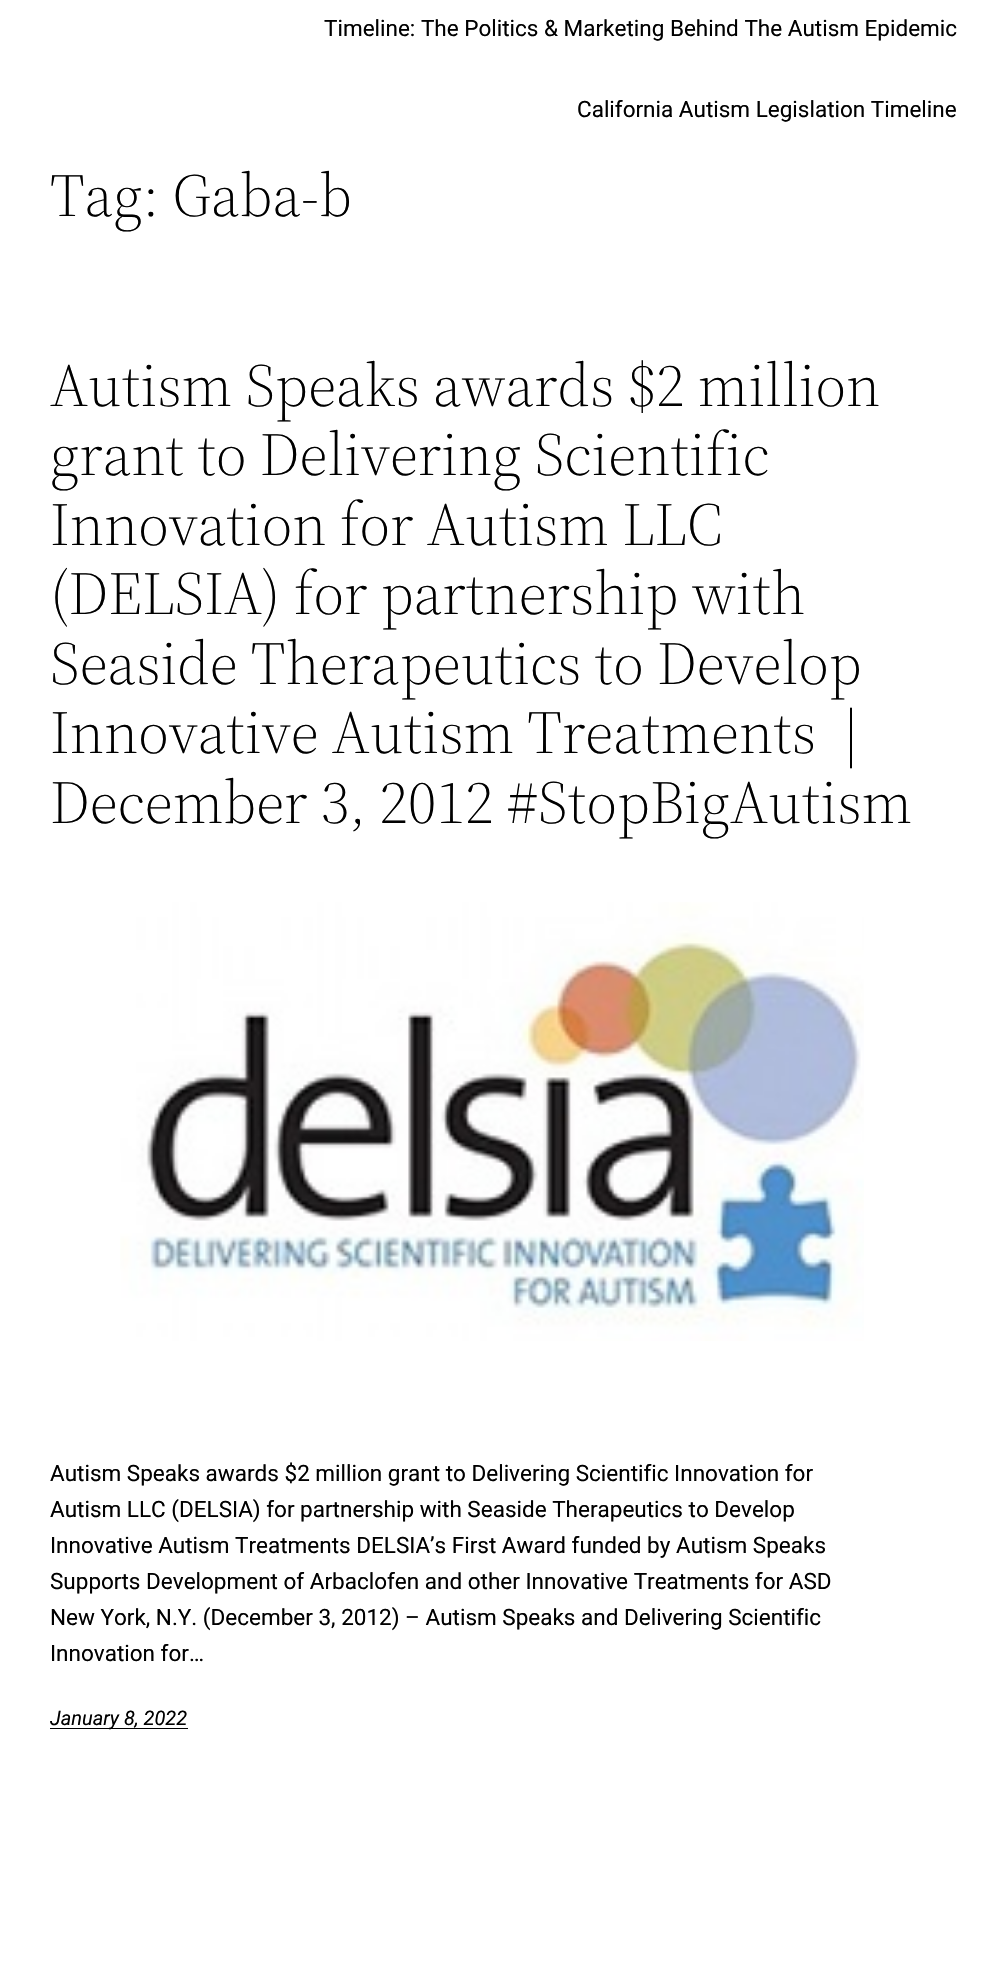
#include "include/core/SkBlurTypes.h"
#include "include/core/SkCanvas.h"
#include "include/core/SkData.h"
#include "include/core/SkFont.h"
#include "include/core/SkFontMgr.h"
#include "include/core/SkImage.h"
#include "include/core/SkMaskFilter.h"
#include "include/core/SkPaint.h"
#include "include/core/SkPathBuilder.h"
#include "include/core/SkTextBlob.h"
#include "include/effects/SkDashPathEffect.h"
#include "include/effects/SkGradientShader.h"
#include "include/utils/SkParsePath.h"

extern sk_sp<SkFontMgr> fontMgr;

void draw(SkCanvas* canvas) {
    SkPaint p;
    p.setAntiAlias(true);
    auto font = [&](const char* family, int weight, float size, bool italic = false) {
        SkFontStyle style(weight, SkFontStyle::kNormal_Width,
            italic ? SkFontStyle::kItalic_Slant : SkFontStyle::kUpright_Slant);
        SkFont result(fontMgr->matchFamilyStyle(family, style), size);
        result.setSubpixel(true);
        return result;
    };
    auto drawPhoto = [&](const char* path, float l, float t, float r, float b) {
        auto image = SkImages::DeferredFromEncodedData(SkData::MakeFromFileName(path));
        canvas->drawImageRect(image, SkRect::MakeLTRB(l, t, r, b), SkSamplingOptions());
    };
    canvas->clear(0xFFFFFFFF);
    auto font1 = font("Roboto", 400, 22.5f);
    p.setColor(0xFF000000);
    canvas->drawString("Timeline: The Politics & Marketing Behind The Autism Epidemic", 324, 36, font1, p);
    canvas->drawString("California Autism Legislation Timeline", 577, 117, font1, p);
    auto font2 = font("Source Serif 4", 300, 60.5f);
    {
        const struct { const char* s; float x, y; } items[] = {
            {"Tag: Gaba-b", 50, 216},
            {"Autism Speaks awards $2 million", 50, 406},
            {"grant to Delivering Scientific", 50, 475},
            {"Innovation for Autism LLC", 50, 545},
            {"(DELSIA) for partnership with", 50, 614},
            {"Seaside Therapeutics to Develop", 50, 684},
            {"Innovative Autism Treatments  |", 50, 753},
            {"December 3, 2012 #StopBigAutism", 50, 823},
        };
        for (auto [s, x, y] : items) {
            canvas->drawString(s, x, y, font2, p);
        }
    }
    drawPhoto("media/1.png", 120, 902, 864, 1341);
    {
        const struct { const char* s; float x, y; } items[] = {
            {"Autism Speaks awards $2 million grant to Delivering Scientific Innovation for", 50, 1481},
            {"Autism LLC (DELSIA) for partnership with Seaside Therapeutics to Develop", 50, 1517},
            {"Innovative Autism Treatments DELSIA’s First Award funded by Autism Speaks", 50, 1553},
            {"Supports Development of Arbaclofen and other Innovative Treatments for ASD", 50, 1589},
            {"New York, N.Y. (December 3, 2012) – Autism Speaks and Delivering Scientific", 50, 1625},
            {"Innovation for…", 50, 1661},
        };
        for (auto [s, x, y] : items) {
            canvas->drawString(s, x, y, font1, p);
        }
    }
    canvas->drawRect(SkRect::MakeLTRB(50, 1728, 188, 1729), p);
    auto font3 = font("Roboto", 400, 20, true);
    canvas->drawString("January 8, 2022", 50, 1725, font3, p);
}
